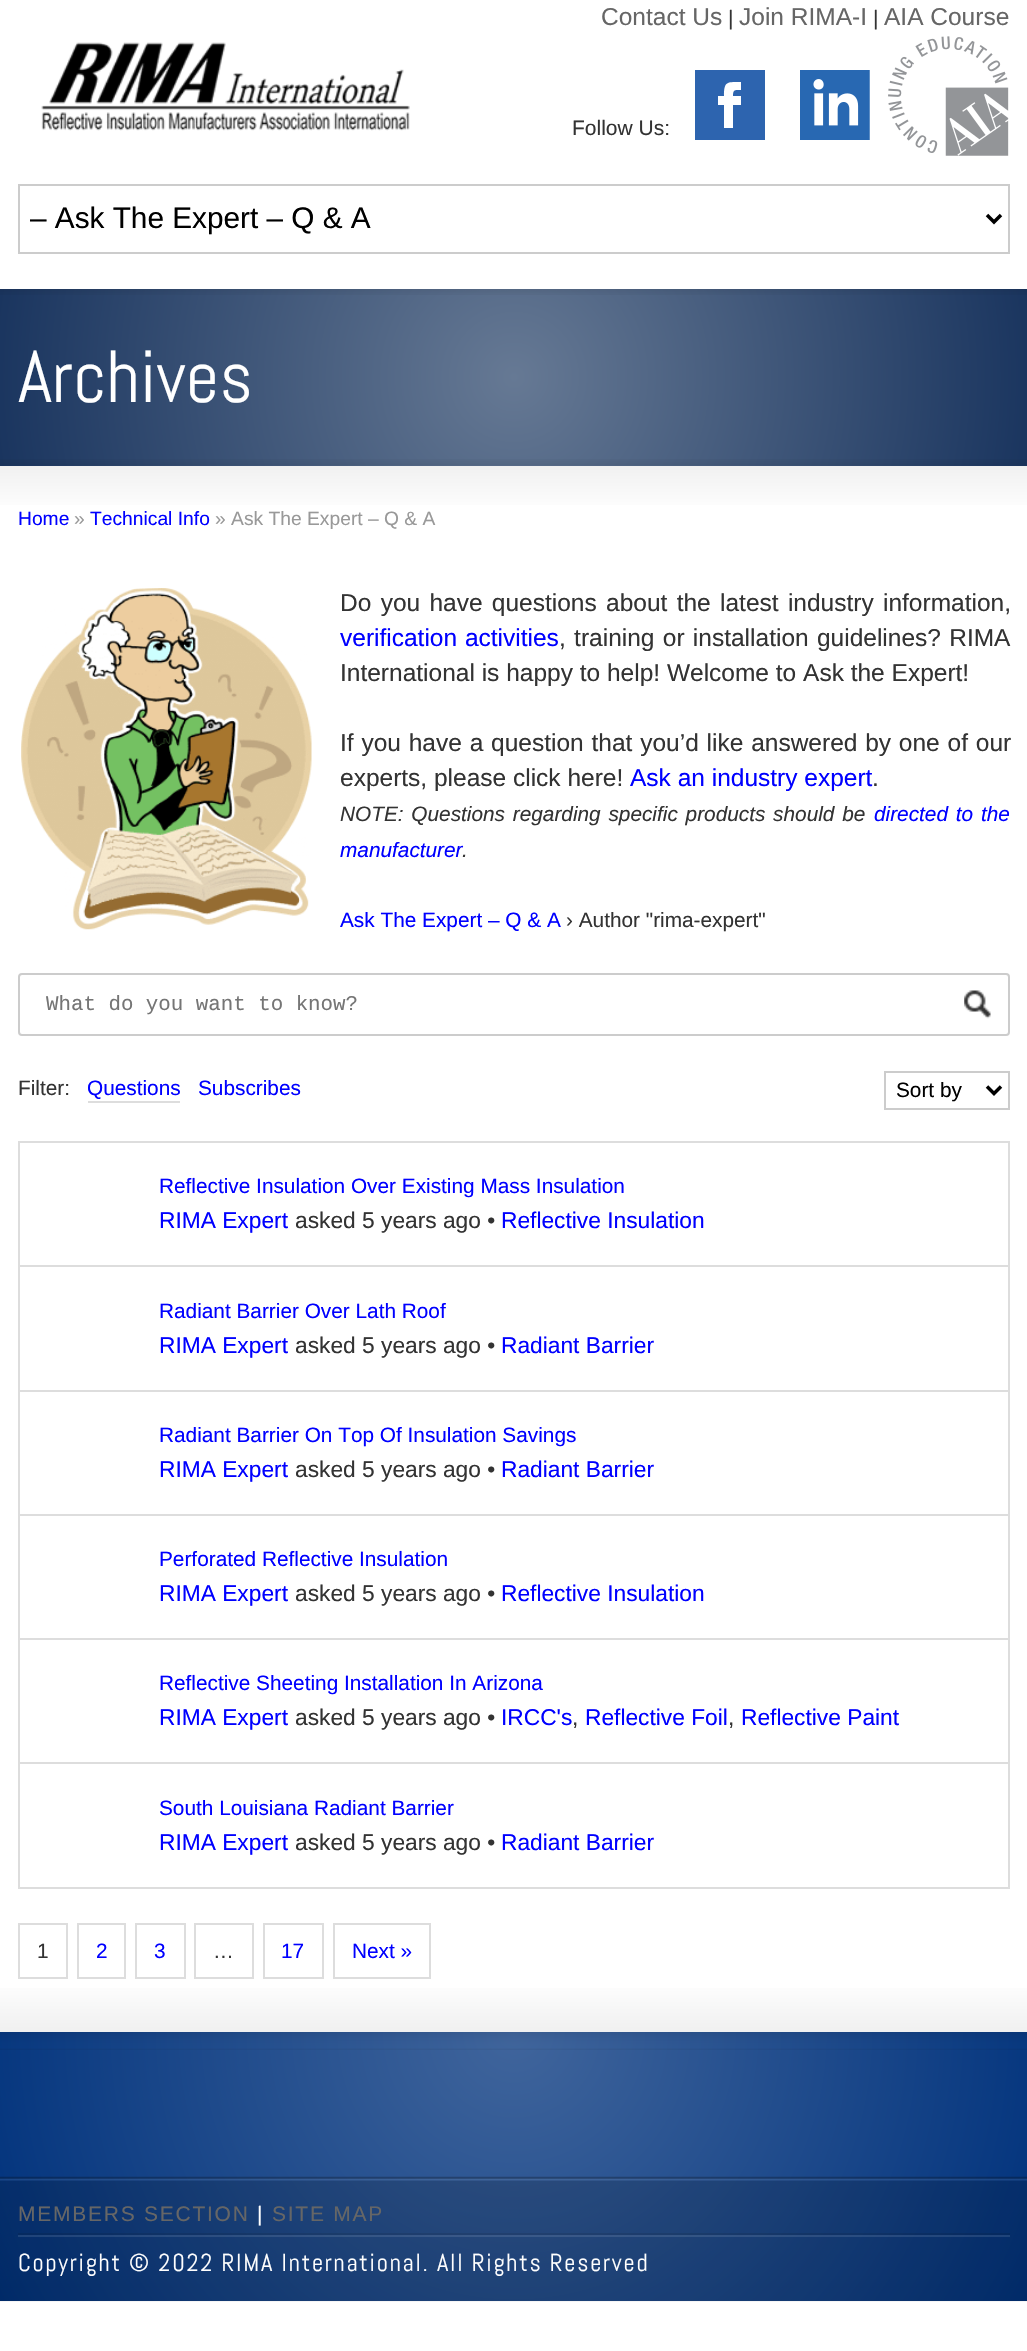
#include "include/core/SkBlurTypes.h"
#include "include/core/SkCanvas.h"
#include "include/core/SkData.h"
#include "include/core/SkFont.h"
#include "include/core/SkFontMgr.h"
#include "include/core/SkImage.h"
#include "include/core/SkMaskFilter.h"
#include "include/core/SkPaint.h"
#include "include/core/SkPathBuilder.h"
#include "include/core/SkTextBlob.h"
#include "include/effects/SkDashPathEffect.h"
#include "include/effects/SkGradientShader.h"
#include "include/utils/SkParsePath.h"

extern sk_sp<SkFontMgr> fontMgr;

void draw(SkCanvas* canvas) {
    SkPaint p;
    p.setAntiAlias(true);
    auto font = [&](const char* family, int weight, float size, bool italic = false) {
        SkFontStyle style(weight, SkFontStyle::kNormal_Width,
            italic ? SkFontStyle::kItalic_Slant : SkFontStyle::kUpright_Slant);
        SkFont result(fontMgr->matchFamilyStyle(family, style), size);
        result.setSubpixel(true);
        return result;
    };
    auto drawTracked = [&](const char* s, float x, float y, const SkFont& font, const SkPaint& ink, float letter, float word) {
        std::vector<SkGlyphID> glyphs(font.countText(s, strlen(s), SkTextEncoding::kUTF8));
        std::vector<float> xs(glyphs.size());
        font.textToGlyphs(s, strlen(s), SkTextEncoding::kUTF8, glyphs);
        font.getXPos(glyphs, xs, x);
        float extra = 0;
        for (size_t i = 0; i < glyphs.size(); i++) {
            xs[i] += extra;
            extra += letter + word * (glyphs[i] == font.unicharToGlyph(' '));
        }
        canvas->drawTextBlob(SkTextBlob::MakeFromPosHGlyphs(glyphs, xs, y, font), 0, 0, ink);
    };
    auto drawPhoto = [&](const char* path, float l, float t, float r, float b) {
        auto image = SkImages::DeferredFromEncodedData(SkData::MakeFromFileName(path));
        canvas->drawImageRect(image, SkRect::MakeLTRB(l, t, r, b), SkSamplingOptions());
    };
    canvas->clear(0xFFFFFFFF);
    drawPhoto("media/1.png", 41, 42, 410, 131);
    auto font1 = font("Liberation Sans", 400, 24.5f);
    p.setColor(0xFF666666);
    canvas->drawString("Contact Us", 601, 25, font1, p);
    auto font2 = font("Liberation Sans", 400, 21);
    p.setColor(0xFF333333);
    canvas->drawString("|", 728, 25, font2, p);
    p.setColor(0xFF666666);
    canvas->drawString("Join RIMA-I", 739, 25, font1, p);
    p.setColor(0xFF333333);
    canvas->drawString("|", 873, 25, font2, p);
    p.setColor(0xFF666666);
    canvas->drawString("AIA Course", 884, 25, font1, p);
    p.setColor(0xFF333333);
    canvas->drawString("Follow Us:", 572, 135, font2, p);
    p.setColor(0xFF2D64AF);
    canvas->drawPath(SkPathBuilder().moveTo(695, 70).lineTo(695, 140).lineTo(765, 140).lineTo(765, 70).close().moveTo(741, 90).cubicTo(735, 90, 733, 89, 733, 96).lineTo(741, 96).lineTo(741, 105).lineTo(733, 105).lineTo(733, 128).lineTo(724, 128).lineTo(724, 105).lineTo(718, 105).lineTo(718, 96).lineTo(724, 96).cubicTo(724, 81, 727, 82, 741, 82).close().detach(), p);
    drawPhoto("media/2.png", 800, 70, 870, 140);
    drawPhoto("media/3.png", 888, 36, 1009, 156);
    p.setStyle(SkPaint::kStroke_Style);
    p.setStrokeWidth(2);
    p.setColor(0xFFCCCCCC);
    canvas->drawRect(SkRect::MakeLTRB(19, 185, 1009, 253), p);
    p.setStrokeWidth(3.5f);
    p.setColor(0xFF000000);
    canvas->drawPath(SkPathBuilder().moveTo(987, 215).lineTo(994, 222).lineTo(1001, 215).detach(), p);
    canvas->save();
    canvas->clipRect(SkRect::MakeLTRB(30, 200, 977, 236));
    auto font3 = font("Liberation Sans", 400, 29.75f);
    p.setStyle(SkPaint::kFill_Style);
    canvas->drawString("– Ask The Expert – Q & A", 30, 228, font3, p);
    canvas->restore();
    {
        const SkColor colors[] = {0xFF667994, 0xFF1A355F};
        const float stops[] = {0, 1};
        p.setShader(SkGradientShader::MakeRadial({514, 377}, 521, colors, stops, 2, SkTileMode::kClamp));
        p.setAlpha(255);
    }
    canvas->drawRect(SkRect::MakeLTRB(0, 289, 1027, 466), p);
    drawPhoto("media/4.png", 0, 289, 1027, 295);
    auto font4 = font("Abel", 400, 73.5f);
    p.setShader(nullptr);
    p.setColor(0xFFFFFFFF);
    canvas->drawString("Archives", 18, 402, font4, p);
    drawPhoto("media/5.png", 0, 459, 1027, 466);
    {
        const SkColor colors[] = {0xFFF0F0F0, 0xFFFFFFFF};
        const float stops[] = {0, 1};
        const SkPoint ends[] = {{514, 465}, {514, 513}};
        p.setShader(SkGradientShader::MakeLinear(ends, colors, stops, 2, SkTileMode::kClamp));
        p.setAlpha(255);
    }
    canvas->drawRect(SkRect::MakeLTRB(0, 466, 1027, 505), p);
    auto font5 = font("Liberation Sans", 400, 19.25f);
    p.setShader(nullptr);
    p.setColor(0xFF0000FF);
    canvas->drawString("Home", 18, 525, font5, p);
    p.setColor(0xFF999999);
    canvas->drawString("»", 74, 525, font5, p);
    p.setColor(0xFF0000FF);
    canvas->drawString("Technical Info", 90, 525, font5, p);
    p.setColor(0xFF999999);
    canvas->drawString("» Ask The Expert – Q & A", 215, 525, font5, p);
    drawPhoto("media/6.png", 21, 588, 312, 930);
    p.setColor(0xFF333333);
    drawTracked("Do you have questions about the latest industry information,", 340, 611, font1, p, 0, 2.5f);
    p.setColor(0xFF0000FF);
    drawTracked("verification activities", 340, 646, font1, p, 0, 1);
    p.setColor(0xFF333333);
    drawTracked(", training or installation guidelines? RIMA", 559, 646, font1, p, 0, 1.5f);
    canvas->drawString("International is happy to help! Welcome to Ask the Expert!", 340, 681, font1, p);
    drawTracked("If you have a question that you’d like answered by one of our", 340, 751, font1, p, 0, 1);
    canvas->drawString("experts, please click here!", 340, 786, font1, p);
    p.setColor(0xFF0000FF);
    canvas->drawString("Ask an industry expert", 630, 786, font1, p);
    p.setColor(0xFF333333);
    canvas->drawString(".", 872, 786, font1, p);
    auto font6 = font("Liberation Sans", 400, 20.8f, true);
    drawTracked("NOTE: Questions regarding specific products should be", 340, 821, font6, p, 0, 2);
    p.setColor(0xFF0000FF);
    drawTracked("directed to the", 874, 821, font6, p, 0, 2);
    canvas->drawString("manufacturer", 340, 857, font6, p);
    p.setColor(0xFF333333);
    canvas->drawString(".", 462, 857, font6, p);
    auto font7 = font("Liberation Sans", 400, 20.8f);
    p.setColor(0xFF0000FF);
    canvas->drawString("Ask The Expert – Q & A", 340, 927, font7, p);
    p.setColor(0xFF333333);
    canvas->drawString("› Author \"rima-expert\"", 566, 927, font7, p);
    drawPhoto("media/7.png", 964, 990, 991, 1019);
    p.setStyle(SkPaint::kStroke_Style);
    p.setStrokeWidth(2);
    p.setColor(0xFFCCCCCC);
    canvas->drawRoundRect(SkRect::MakeLTRB(19, 974, 1009, 1035), 3, 3, p);
    canvas->save();
    canvas->clipRect(SkRect::MakeLTRB(46, 992, 982, 1017));
    auto font8 = font("Liberation Mono", 400, 20.8f);
    p.setStyle(SkPaint::kFill_Style);
    p.setColor(0xFF757575);
    canvas->drawString("What do you want to know?", 46, 1010, font8, p);
    canvas->restore();
    p.setColor(0xFF333333);
    canvas->drawString("Filter:", 18, 1095, font7, p);
    p.setColor(0xFF0000FF);
    canvas->drawString("Questions", 87, 1095, font7, p);
    p.setColor(0xFFDDDDDD);
    canvas->drawRect(SkRect::MakeLTRB(88, 1101, 180, 1103), p);
    p.setColor(0xFF0000FF);
    canvas->drawString("Subscribes", 198, 1095, font7, p);
    p.setStyle(SkPaint::kStroke_Style);
    p.setColor(0xFFCCCCCC);
    canvas->drawRect(SkRect::MakeLTRB(885, 1072, 1009, 1109), p);
    p.setStrokeWidth(3.5f);
    p.setColor(0xFF000000);
    canvas->drawPath(SkPathBuilder().moveTo(987, 1086.5f).lineTo(994, 1093.5f).lineTo(1001, 1086.5f).detach(), p);
    p.setStyle(SkPaint::kFill_Style);
    canvas->drawString("Sort by", 896, 1097, font7, p);
    {
        const struct { float l, t, r, b; SkColor color; } items[] = {
            {18, 1141, 1010, 1143, 0xFFDDDDDD},
            {1008, 1143, 1010, 1391, 0xFFDDDDDD},
            {18, 1265, 1010, 1267, 0xFFDDDDDD},
            {18, 1143, 20, 1267, 0xFFDDDDDD},
        };
        for (auto [l, t, r, b, color] : items) {
            p.setColor(color);
            canvas->drawRect(SkRect::MakeLTRB(l, t, r, b), p);
        }
    }
    p.setColor(0xFF0000FF);
    canvas->drawString("Reflective Insulation Over Existing Mass Insulation", 159, 1193, font7, p);
    auto font9 = font("Liberation Sans", 400, 22.75f);
    canvas->drawString("RIMA Expert", 159, 1228, font9, p);
    p.setColor(0xFF333333);
    canvas->drawString("asked 5 years ago •", 295, 1228, font9, p);
    p.setColor(0xFF0000FF);
    canvas->drawString("Reflective Insulation", 501, 1228, font9, p);
    p.setColor(0xFFDDDDDD);
    canvas->drawRect(SkRect::MakeLTRB(18, 1390, 1010, 1392), p);
    canvas->drawRect(SkRect::MakeLTRB(18, 1267, 20, 1391), p);
    p.setColor(0xFF0000FF);
    canvas->drawString("Radiant Barrier Over Lath Roof", 159, 1318, font7, p);
    canvas->drawString("RIMA Expert", 159, 1353, font9, p);
    p.setColor(0xFF333333);
    canvas->drawString("asked 5 years ago •", 295, 1353, font9, p);
    p.setColor(0xFF0000FF);
    canvas->drawString("Radiant Barrier", 501, 1353, font9, p);
    {
        const struct { float l, t, r, b; SkColor color; } items[] = {
            {1008, 1391, 1010, 1888, 0xFFDDDDDD},
            {18, 1514, 1010, 1516, 0xFFDDDDDD},
            {18, 1391, 20, 1516, 0xFFDDDDDD},
        };
        for (auto [l, t, r, b, color] : items) {
            p.setColor(color);
            canvas->drawRect(SkRect::MakeLTRB(l, t, r, b), p);
        }
    }
    p.setColor(0xFF0000FF);
    canvas->drawString("Radiant Barrier On Top Of Insulation Savings", 159, 1442, font7, p);
    canvas->drawString("RIMA Expert", 159, 1477, font9, p);
    p.setColor(0xFF333333);
    canvas->drawString("asked 5 years ago •", 295, 1477, font9, p);
    p.setColor(0xFF0000FF);
    canvas->drawString("Radiant Barrier", 501, 1477, font9, p);
    p.setColor(0xFFDDDDDD);
    canvas->drawRect(SkRect::MakeLTRB(18, 1638, 1010, 1640), p);
    canvas->drawRect(SkRect::MakeLTRB(18, 1516, 20, 1640), p);
    p.setColor(0xFF0000FF);
    canvas->drawString("Perforated Reflective Insulation", 159, 1566, font7, p);
    canvas->drawString("RIMA Expert", 159, 1601, font9, p);
    p.setColor(0xFF333333);
    canvas->drawString("asked 5 years ago •", 295, 1601, font9, p);
    p.setColor(0xFF0000FF);
    canvas->drawString("Reflective Insulation", 501, 1601, font9, p);
    p.setColor(0xFFDDDDDD);
    canvas->drawRect(SkRect::MakeLTRB(18, 1762, 1010, 1764), p);
    canvas->drawRect(SkRect::MakeLTRB(18, 1640, 20, 1764), p);
    p.setColor(0xFF0000FF);
    canvas->drawString("Reflective Sheeting Installation In Arizona", 159, 1690, font7, p);
    canvas->drawString("RIMA Expert", 159, 1725, font9, p);
    p.setColor(0xFF333333);
    canvas->drawString("asked 5 years ago •", 295, 1725, font9, p);
    p.setColor(0xFF0000FF);
    canvas->drawString("IRCC's", 501, 1725, font9, p);
    p.setColor(0xFF333333);
    canvas->drawString(",", 572, 1725, font9, p);
    p.setColor(0xFF0000FF);
    canvas->drawString("Reflective Foil", 585, 1725, font9, p);
    p.setColor(0xFF333333);
    canvas->drawString(",", 728, 1725, font9, p);
    p.setColor(0xFF0000FF);
    canvas->drawString("Reflective Paint", 741, 1725, font9, p);
    p.setColor(0xFFDDDDDD);
    canvas->drawRect(SkRect::MakeLTRB(18, 1887, 1010, 1889), p);
    canvas->drawRect(SkRect::MakeLTRB(18, 1764, 20, 1888), p);
    p.setColor(0xFF0000FF);
    canvas->drawString("South Louisiana Radiant Barrier", 159, 1815, font7, p);
    canvas->drawString("RIMA Expert", 159, 1850, font9, p);
    p.setColor(0xFF333333);
    canvas->drawString("asked 5 years ago •", 295, 1850, font9, p);
    p.setColor(0xFF0000FF);
    canvas->drawString("Radiant Barrier", 501, 1850, font9, p);
    p.setStyle(SkPaint::kStroke_Style);
    p.setStrokeWidth(2);
    p.setColor(0xFFDDDDDD);
    canvas->drawRect(SkRect::MakeLTRB(19, 1924, 67, 1978), p);
    p.setStyle(SkPaint::kFill_Style);
    p.setColor(0xFF333333);
    canvas->drawString("1", 37, 1958, font7, p);
    p.setStyle(SkPaint::kStroke_Style);
    p.setColor(0xFFDDDDDD);
    canvas->drawRect(SkRect::MakeLTRB(78, 1924, 125, 1978), p);
    p.setStyle(SkPaint::kFill_Style);
    p.setColor(0xFF0000FF);
    canvas->drawString("2", 96, 1958, font7, p);
    p.setStyle(SkPaint::kStroke_Style);
    p.setColor(0xFFDDDDDD);
    canvas->drawRect(SkRect::MakeLTRB(136, 1924, 185, 1978), p);
    p.setStyle(SkPaint::kFill_Style);
    p.setColor(0xFF0000FF);
    canvas->drawString("3", 154, 1958, font7, p);
    p.setStyle(SkPaint::kStroke_Style);
    p.setColor(0xFFDDDDDD);
    canvas->drawRect(SkRect::MakeLTRB(195, 1924, 253, 1978), p);
    p.setStyle(SkPaint::kFill_Style);
    p.setColor(0xFF333333);
    canvas->drawString("…", 213, 1958, font7, p);
    p.setStyle(SkPaint::kStroke_Style);
    p.setColor(0xFFDDDDDD);
    canvas->drawRect(SkRect::MakeLTRB(264, 1924, 323, 1978), p);
    p.setStyle(SkPaint::kFill_Style);
    p.setColor(0xFF0000FF);
    canvas->drawString("17", 281, 1958, font7, p);
    p.setStyle(SkPaint::kStroke_Style);
    p.setColor(0xFFDDDDDD);
    canvas->drawRect(SkRect::MakeLTRB(334, 1924, 430, 1978), p);
    p.setStyle(SkPaint::kFill_Style);
    p.setColor(0xFF0000FF);
    canvas->drawString("Next »", 352, 1958, font7, p);
    {
        const SkColor colors[] = {0xFFFFFFFF, 0xFFF0F0F0};
        const float stops[] = {0, 1};
        const SkPoint ends[] = {{514, 1979}, {514, 2032}};
        p.setShader(SkGradientShader::MakeLinear(ends, colors, stops, 2, SkTileMode::kClamp));
        p.setAlpha(255);
    }
    canvas->drawRect(SkRect::MakeLTRB(0, 1988, 1027, 2032), p);
    {
        const SkColor colors[] = {0xFF40659C, 0xFF00327C};
        const float stops[] = {0, 1};
        p.setShader(SkGradientShader::MakeRadial({514, 2032}, 580, colors, stops, 2, SkTileMode::kClamp));
        p.setAlpha(255);
    }
    canvas->drawRect(SkRect::MakeLTRB(0, 2032, 1027, 2301), p);
    drawPhoto("media/8.png", 0, 2032, 1027, 2050);
    drawPhoto("media/9.png", 0, 2176, 1027, 2302);
    p.setShader(nullptr);
    p.setColor(0x1AFFFFFF);
    canvas->drawRect(SkRect::MakeLTRB(18, 2235, 1010, 2237), p);
    p.setColor(0xFF666666);
    drawTracked("MEMBERS SECTION", 18, 2221, font2, p, 1.75f, 0);
    p.setColor(0xFFFFFFFF);
    drawTracked("|", 257, 2221, font2, p, 1.75f, 0);
    p.setColor(0xFF666666);
    drawTracked("SITE MAP", 272, 2221, font2, p, 1.75f, 0);
    p.setColor(0x1A000000);
    canvas->drawRect(SkRect::MakeLTRB(18, 2233, 1010, 2235), p);
    auto font10 = font("Abel", 400, 24.5f);
    p.setColor(0xFFFFFFFF);
    drawTracked("Copyright © 2022 RIMA International. All Rights Reserved", 18, 2271, font10, p, 1.75f, 0);
}
